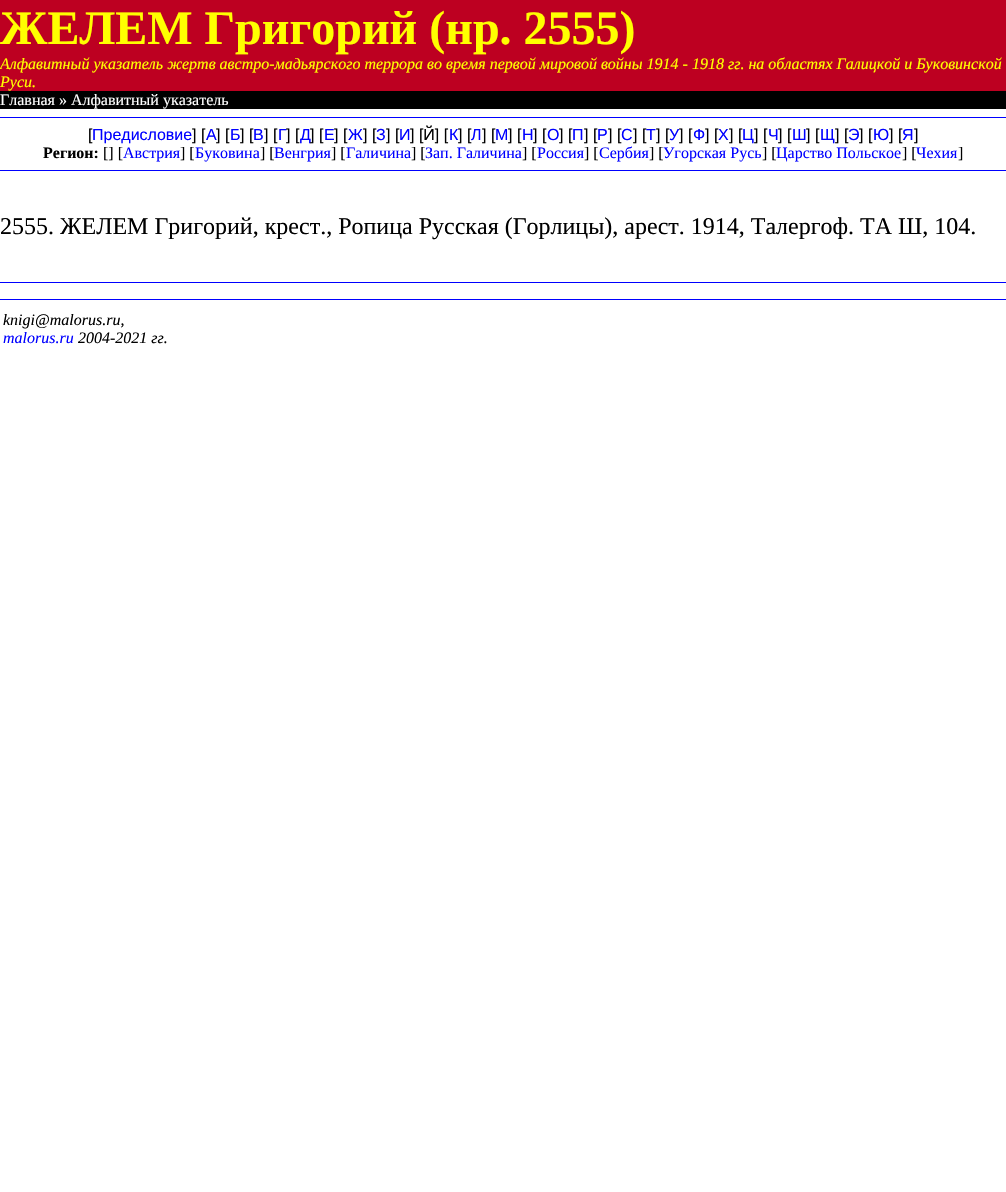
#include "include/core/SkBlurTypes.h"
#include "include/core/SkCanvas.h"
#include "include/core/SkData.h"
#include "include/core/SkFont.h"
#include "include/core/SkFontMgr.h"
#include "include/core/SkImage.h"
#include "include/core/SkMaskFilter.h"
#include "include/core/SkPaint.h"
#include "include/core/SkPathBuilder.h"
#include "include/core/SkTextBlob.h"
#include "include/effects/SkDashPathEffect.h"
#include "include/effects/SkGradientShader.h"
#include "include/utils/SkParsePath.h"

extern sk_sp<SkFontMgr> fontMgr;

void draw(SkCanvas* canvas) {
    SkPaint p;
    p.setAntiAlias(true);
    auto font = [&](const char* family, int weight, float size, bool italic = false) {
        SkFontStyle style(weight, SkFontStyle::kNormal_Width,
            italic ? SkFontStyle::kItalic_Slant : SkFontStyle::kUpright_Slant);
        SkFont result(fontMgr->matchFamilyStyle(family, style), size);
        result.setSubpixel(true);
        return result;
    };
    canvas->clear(0xFFFFFFFF);
    p.setColor(0xFFBD0021);
    canvas->drawRect(SkRect::MakeLTRB(0, 0, 1006, 91), p);
    auto font1 = font("Liberation Serif", 700, 48);
    p.setColor(0xFFFFFF00);
    canvas->drawString("ЖЕЛЕМ Григорий (нр. 2555)", 0, 44, font1, p);
    auto font2 = font("Liberation Serif", 400, 16, true);
    canvas->drawString("Алфавитный указатель жертв австро-мадьярского террора во время первой мировой войны 1914 - 1918 гг. на областях Галицкой и Буковинской", 0, 69, font2, p);
    canvas->drawString("Руси.", 0, 87, font2, p);
    p.setColor(0xFF000000);
    canvas->drawRect(SkRect::MakeLTRB(0, 91, 1006, 109), p);
    auto font3 = font("Liberation Serif", 400, 16);
    p.setColor(0xFFFFFFFF);
    canvas->drawString("Главная » Алфавитный указатель", 0, 105, font3, p);
    p.setColor(0xFF0000FF);
    canvas->drawRect(SkRect::MakeLTRB(0, 117, 1006, 118), p);
    auto font4 = font("Liberation Sans", 400, 16);
    p.setColor(0xFF000000);
    canvas->drawString("[", 88, 140, font4, p);
    p.setColor(0xFF0000FF);
    canvas->drawString("Предисловие", 92, 140, font4, p);
    p.setColor(0xFF000000);
    canvas->drawString("] [", 192, 140, font4, p);
    p.setColor(0xFF0000FF);
    canvas->drawString("А", 206, 140, font4, p);
    p.setColor(0xFF000000);
    canvas->drawString("] [", 216, 140, font4, p);
    p.setColor(0xFF0000FF);
    canvas->drawString("Б", 230, 140, font4, p);
    p.setColor(0xFF000000);
    canvas->drawString("] [", 240, 140, font4, p);
    p.setColor(0xFF0000FF);
    canvas->drawString("В", 253, 140, font4, p);
    p.setColor(0xFF000000);
    canvas->drawString("] [", 264, 140, font4, p);
    p.setColor(0xFF0000FF);
    canvas->drawString("Г", 278, 140, font4, p);
    p.setColor(0xFF000000);
    canvas->drawString("] [", 286, 140, font4, p);
    p.setColor(0xFF0000FF);
    canvas->drawString("Д", 300, 140, font4, p);
    p.setColor(0xFF000000);
    canvas->drawString("] [", 310, 140, font4, p);
    p.setColor(0xFF0000FF);
    canvas->drawString("Е", 324, 140, font4, p);
    p.setColor(0xFF000000);
    canvas->drawString("] [", 334, 140, font4, p);
    p.setColor(0xFF0000FF);
    canvas->drawString("Ж", 348, 140, font4, p);
    p.setColor(0xFF000000);
    canvas->drawString("] [", 363, 140, font4, p);
    p.setColor(0xFF0000FF);
    canvas->drawString("З", 376, 140, font4, p);
    p.setColor(0xFF000000);
    canvas->drawString("] [", 386, 140, font4, p);
    p.setColor(0xFF0000FF);
    canvas->drawString("И", 399, 140, font4, p);
    p.setColor(0xFF000000);
    canvas->drawString("] [Й] [", 410, 140, font4, p);
    p.setColor(0xFF0000FF);
    canvas->drawString("К", 449, 140, font4, p);
    p.setColor(0xFF000000);
    canvas->drawString("] [", 458, 140, font4, p);
    p.setColor(0xFF0000FF);
    canvas->drawString("Л", 471, 140, font4, p);
    p.setColor(0xFF000000);
    canvas->drawString("] [", 482, 140, font4, p);
    p.setColor(0xFF0000FF);
    canvas->drawString("М", 495, 140, font4, p);
    p.setColor(0xFF000000);
    canvas->drawString("] [", 508, 140, font4, p);
    p.setColor(0xFF0000FF);
    canvas->drawString("Н", 522, 140, font4, p);
    p.setColor(0xFF000000);
    canvas->drawString("] [", 533, 140, font4, p);
    p.setColor(0xFF0000FF);
    canvas->drawString("О", 547, 140, font4, p);
    p.setColor(0xFF000000);
    canvas->drawString("] [", 559, 140, font4, p);
    p.setColor(0xFF0000FF);
    canvas->drawString("П", 572, 140, font4, p);
    p.setColor(0xFF000000);
    canvas->drawString("] [", 584, 140, font4, p);
    p.setColor(0xFF0000FF);
    canvas->drawString("Р", 597, 140, font4, p);
    p.setColor(0xFF000000);
    canvas->drawString("] [", 608, 140, font4, p);
    p.setColor(0xFF0000FF);
    canvas->drawString("С", 621, 140, font4, p);
    p.setColor(0xFF000000);
    canvas->drawString("] [", 633, 140, font4, p);
    p.setColor(0xFF0000FF);
    canvas->drawString("Т", 646, 140, font4, p);
    p.setColor(0xFF000000);
    canvas->drawString("] [", 656, 140, font4, p);
    p.setColor(0xFF0000FF);
    canvas->drawString("У", 669, 140, font4, p);
    p.setColor(0xFF000000);
    canvas->drawString("] [", 679, 140, font4, p);
    p.setColor(0xFF0000FF);
    canvas->drawString("Ф", 693, 140, font4, p);
    p.setColor(0xFF000000);
    canvas->drawString("] [", 705, 140, font4, p);
    p.setColor(0xFF0000FF);
    canvas->drawString("Х", 718, 140, font4, p);
    p.setColor(0xFF000000);
    canvas->drawString("] [", 729, 140, font4, p);
    p.setColor(0xFF0000FF);
    canvas->drawString("Ц", 742, 140, font4, p);
    p.setColor(0xFF000000);
    canvas->drawString("] [", 754, 140, font4, p);
    p.setColor(0xFF0000FF);
    canvas->drawString("Ч", 768, 140, font4, p);
    p.setColor(0xFF000000);
    canvas->drawString("] [", 778, 140, font4, p);
    p.setColor(0xFF0000FF);
    canvas->drawString("Ш", 792, 140, font4, p);
    p.setColor(0xFF000000);
    canvas->drawString("] [", 806, 140, font4, p);
    p.setColor(0xFF0000FF);
    canvas->drawString("Щ", 820, 140, font4, p);
    p.setColor(0xFF000000);
    canvas->drawString("] [", 835, 140, font4, p);
    p.setColor(0xFF0000FF);
    canvas->drawString("Э", 848, 140, font4, p);
    p.setColor(0xFF000000);
    canvas->drawString("] [", 859, 140, font4, p);
    p.setColor(0xFF0000FF);
    canvas->drawString("Ю", 873, 140, font4, p);
    p.setColor(0xFF000000);
    canvas->drawString("] [", 889, 140, font4, p);
    p.setColor(0xFF0000FF);
    canvas->drawString("Я", 902, 140, font4, p);
    p.setColor(0xFF000000);
    canvas->drawString("]", 914, 140, font4, p);
    auto font5 = font("Liberation Serif", 700, 16);
    canvas->drawString("Регион:", 43, 158, font5, p);
    canvas->drawString("[] [", 103, 158, font3, p);
    p.setColor(0xFF0000FF);
    canvas->drawString("Австрия", 123, 158, font3, p);
    p.setColor(0xFF000000);
    canvas->drawString("] [", 180, 158, font3, p);
    p.setColor(0xFF0000FF);
    canvas->drawString("Буковина", 195, 158, font3, p);
    p.setColor(0xFF000000);
    canvas->drawString("] [", 260, 158, font3, p);
    p.setColor(0xFF0000FF);
    canvas->drawString("Венгрия", 274, 158, font3, p);
    p.setColor(0xFF000000);
    canvas->drawString("] [", 331, 158, font3, p);
    p.setColor(0xFF0000FF);
    canvas->drawString("Галичина", 346, 158, font3, p);
    p.setColor(0xFF000000);
    canvas->drawString("] [", 411, 158, font3, p);
    p.setColor(0xFF0000FF);
    canvas->drawString("Зап. Галичина", 425, 158, font3, p);
    p.setColor(0xFF000000);
    canvas->drawString("] [", 522, 158, font3, p);
    p.setColor(0xFF0000FF);
    canvas->drawString("Россия", 537, 158, font3, p);
    p.setColor(0xFF000000);
    canvas->drawString("] [", 584, 158, font3, p);
    p.setColor(0xFF0000FF);
    canvas->drawString("Сербия", 599, 158, font3, p);
    p.setColor(0xFF000000);
    canvas->drawString("] [", 649, 158, font3, p);
    p.setColor(0xFF0000FF);
    canvas->drawString("Угорская Русь", 663, 158, font3, p);
    p.setColor(0xFF000000);
    canvas->drawString("] [", 762, 158, font3, p);
    p.setColor(0xFF0000FF);
    canvas->drawString("Царство Польское", 776, 158, font3, p);
    p.setColor(0xFF000000);
    canvas->drawString("] [", 902, 158, font3, p);
    p.setColor(0xFF0000FF);
    canvas->drawString("Чехия", 916, 158, font3, p);
    p.setColor(0xFF000000);
    canvas->drawString("]", 958, 158, font3, p);
    p.setColor(0xFF0000FF);
    canvas->drawRect(SkRect::MakeLTRB(0, 170, 1006, 171), p);
    auto font6 = font("Liberation Serif", 400, 24);
    p.setColor(0xFF000000);
    canvas->drawString("2555. ЖЕЛЕМ Григорий, крест., Ропица Русская (Горлицы), арест. 1914, Талергоф. ТА Ш, 104.", 0, 234, font6, p);
    p.setColor(0xFF0000FF);
    canvas->drawRect(SkRect::MakeLTRB(0, 282, 1006, 283), p);
    canvas->drawRect(SkRect::MakeLTRB(0, 299, 1006, 300), p);
    p.setColor(0xFF000000);
    canvas->drawString("knigi@malorus.ru,", 3, 325, font2, p);
    p.setColor(0xFF0000FF);
    canvas->drawString("malorus.ru", 3, 343, font2, p);
    p.setColor(0xFF000000);
    canvas->drawString("2004-2021 гг.", 78, 343, font2, p);
}
